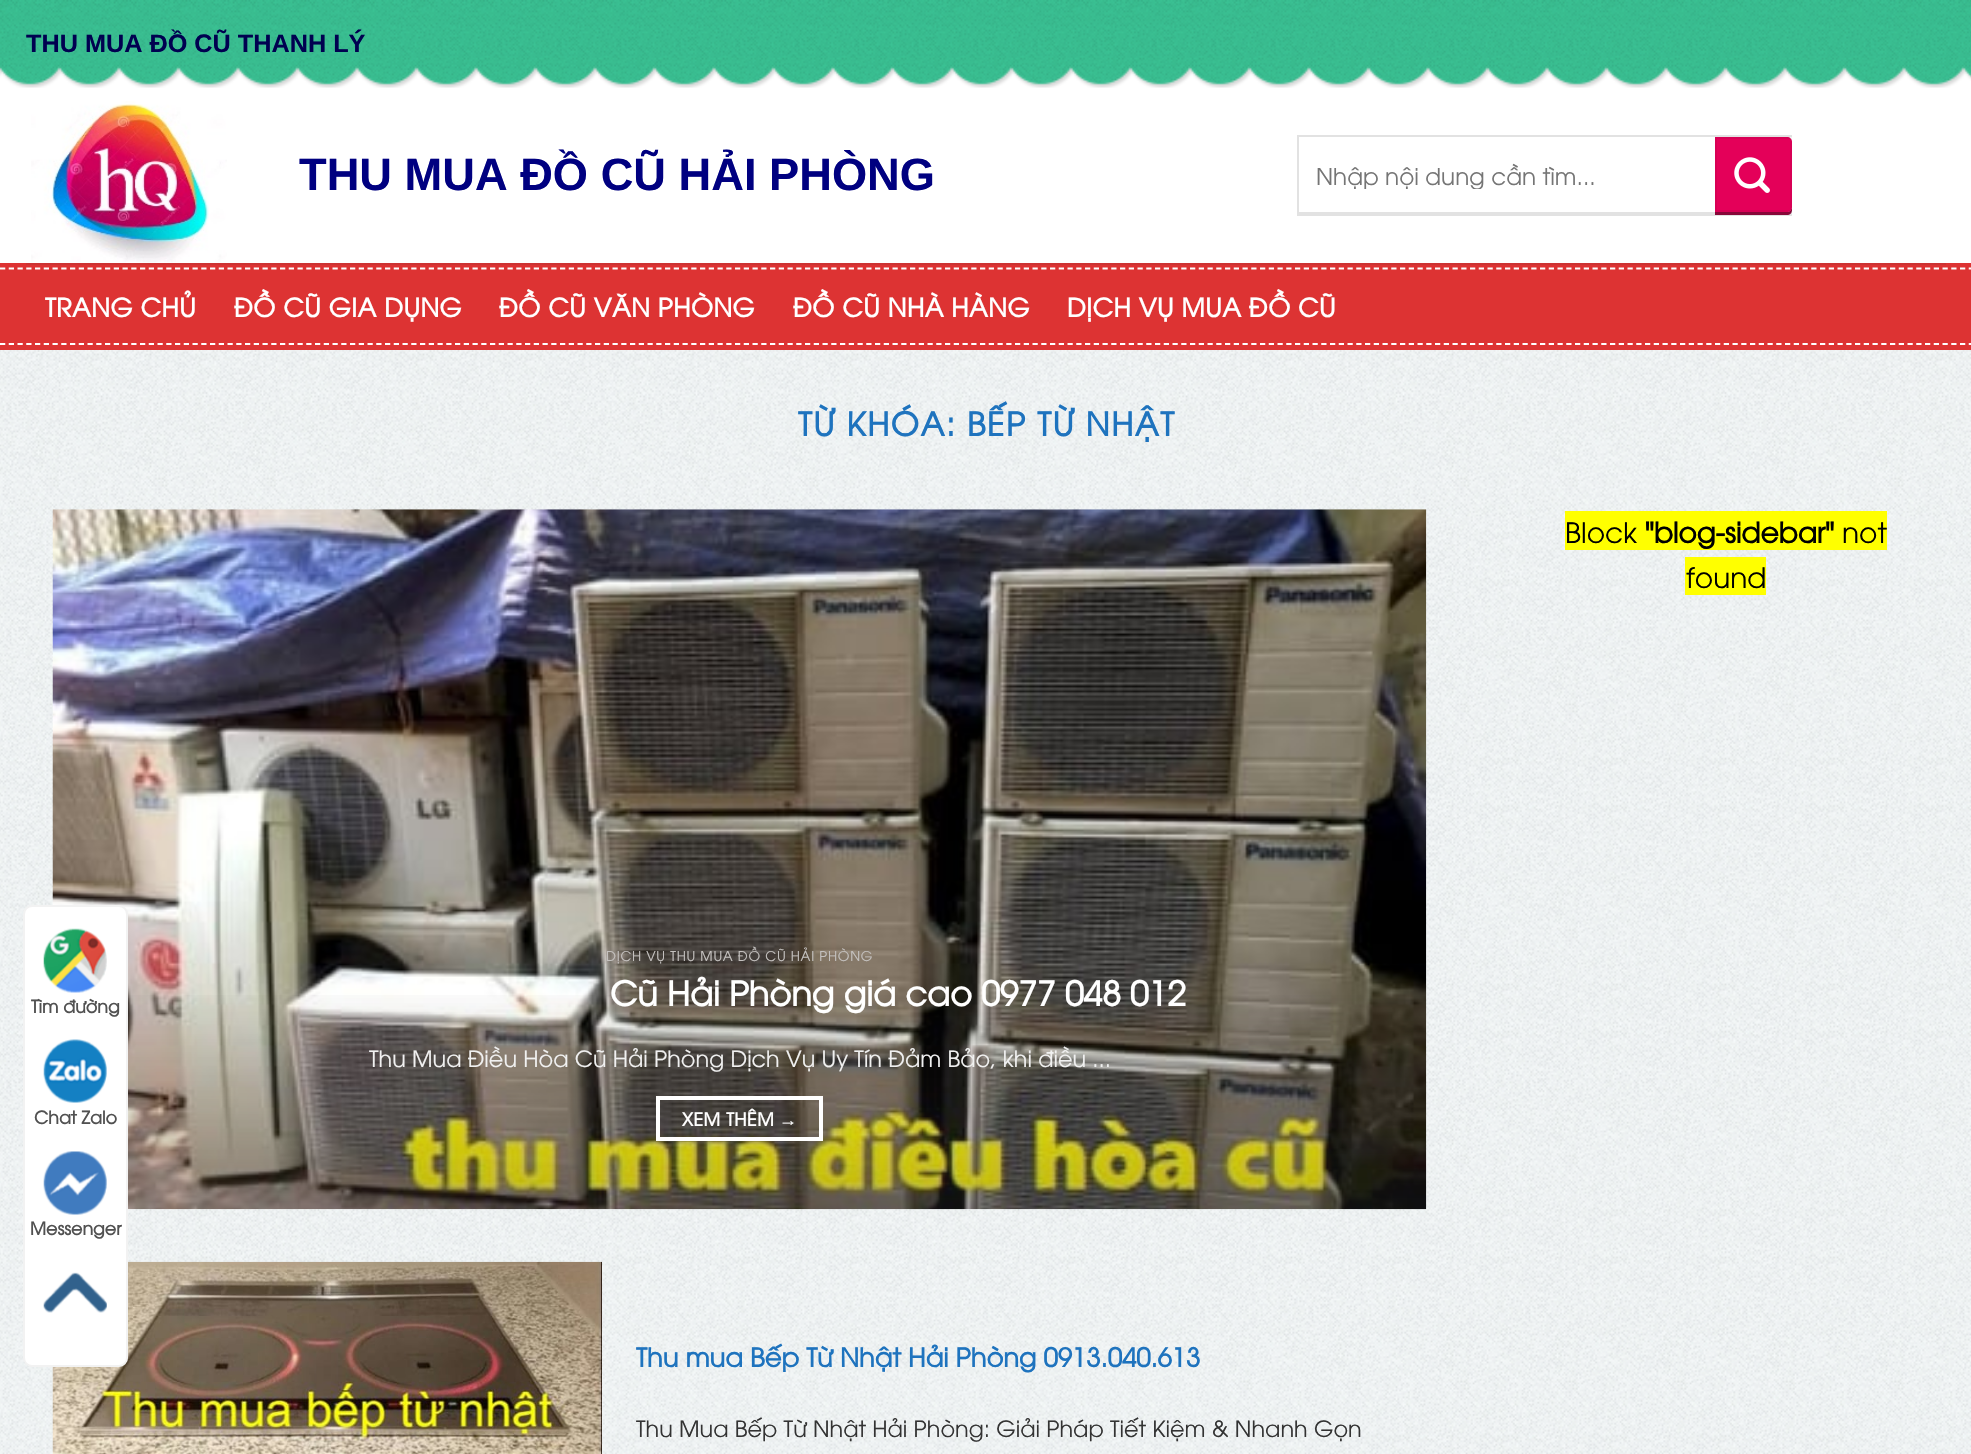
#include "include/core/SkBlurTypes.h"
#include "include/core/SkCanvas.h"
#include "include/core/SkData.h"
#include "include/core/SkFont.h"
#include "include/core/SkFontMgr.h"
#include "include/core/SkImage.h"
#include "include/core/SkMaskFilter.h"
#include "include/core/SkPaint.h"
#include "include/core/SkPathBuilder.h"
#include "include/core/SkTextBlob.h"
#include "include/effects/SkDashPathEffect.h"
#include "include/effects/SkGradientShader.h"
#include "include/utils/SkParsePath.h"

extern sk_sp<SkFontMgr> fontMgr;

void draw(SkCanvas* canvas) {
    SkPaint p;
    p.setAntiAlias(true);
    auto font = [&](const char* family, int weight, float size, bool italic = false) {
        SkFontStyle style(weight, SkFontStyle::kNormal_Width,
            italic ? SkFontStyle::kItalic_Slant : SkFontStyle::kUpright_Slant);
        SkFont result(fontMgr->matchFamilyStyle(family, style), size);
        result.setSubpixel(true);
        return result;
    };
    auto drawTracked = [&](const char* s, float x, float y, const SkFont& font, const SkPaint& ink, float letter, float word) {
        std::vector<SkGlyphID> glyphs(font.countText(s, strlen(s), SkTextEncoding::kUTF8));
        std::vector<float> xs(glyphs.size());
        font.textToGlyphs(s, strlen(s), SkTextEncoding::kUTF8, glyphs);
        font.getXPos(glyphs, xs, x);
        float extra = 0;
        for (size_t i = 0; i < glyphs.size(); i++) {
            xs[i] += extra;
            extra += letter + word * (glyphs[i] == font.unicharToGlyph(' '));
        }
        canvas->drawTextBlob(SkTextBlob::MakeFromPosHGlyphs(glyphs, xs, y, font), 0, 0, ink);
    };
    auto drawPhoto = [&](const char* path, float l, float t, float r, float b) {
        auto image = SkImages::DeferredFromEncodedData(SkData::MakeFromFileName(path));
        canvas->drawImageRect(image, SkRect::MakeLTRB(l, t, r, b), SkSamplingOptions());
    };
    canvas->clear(0xFFFFFFFF);
    drawPhoto("media/1.png", 0, 0, 1971, 88);
    auto font1 = font("Liberation Sans", 700, 25.25f);
    p.setColor(0xFF000050);
    canvas->drawString("THU MUA ĐỒ CŨ THANH LÝ", 26, 52, font1, p);
    drawPhoto("media/2.png", 31, 101, 227, 263);
    auto font2 = font("Liberation Sans", 700, 45.25f);
    p.setColor(0xFF000080);
    canvas->drawString("THU MUA ĐỒ CŨ HẢI PHÒNG", 299, 190, font2, p);
    {
        const struct { float l, t, r, b; SkColor color; } items[] = {
            {1297, 135, 1792, 137, 0xFFE2E2E2},
            {1297, 212, 1792, 216, 0xFFE2E2E2},
            {1297, 135, 1299, 215, 0xFFE2E2E2},
        };
        for (auto [l, t, r, b, color] : items) {
            p.setColor(color);
            canvas->drawRect(SkRect::MakeLTRB(l, t, r, b), p);
        }
    }
    canvas->save();
    canvas->clipRect(SkRect::MakeLTRB(1316, 158, 1691, 189));
    auto font3 = font("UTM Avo", 400, 23.1f);
    p.setColor(0xFF757575);
    canvas->drawString("Nhập nội dung cần tìm...", 1316, 185, font3, p);
    canvas->restore();
    p.setColor(0xFF860738);
    canvas->drawPath(SkPathBuilder().moveTo(1715, 212).lineTo(1715, 215).lineTo(1787, 215).cubicTo(1790, 215, 1792, 213, 1792, 210).lineTo(1792, 206).cubicTo(1792, 209, 1790, 212, 1787, 212).close().detach(), p);
    p.setColor(0xFFE40059);
    canvas->drawPath(SkPathBuilder().moveTo(1715, 137).lineTo(1787, 137).cubicTo(1790, 137, 1792, 139, 1792, 142).lineTo(1792, 207).cubicTo(1792, 210, 1790, 212, 1787, 212).lineTo(1715, 212).close().detach(), p);
    p.setStyle(SkPaint::kStroke_Style);
    p.setStrokeWidth(2);
    p.setColor(0x0D000000);
    canvas->drawRect(SkRect::MakeLTRB(1716, 138, 1791, 211), p);
    drawPhoto("media/3.png", 1734, 157, 1770, 193);
    p.setStyle(SkPaint::kFill_Style);
    p.setColor(0xFFDD3333);
    canvas->drawRect(SkRect::MakeLTRB(0, 263, 1971, 350), p);
    p.setColor(0xFFCC3333);
    canvas->drawRect(SkRect::MakeLTRB(26, 263, 1946, 265), p);
    p.setStyle(SkPaint::kStroke_Style);
    p.setStrokeWidth(1.8f);
    p.setColor(0xFFFFFFFF);
    p.setPathEffect(SkDashPathEffect::Make({{5.25f, 3.5f}}, 0));
    canvas->drawPath(SkPathBuilder().moveTo(0, 268.5f).lineTo(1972, 268.5f).detach(), p);
    p.setPathEffect(nullptr);
    p.setPathEffect(SkDashPathEffect::Make({{5.25f, 3.5f}}, 0));
    canvas->drawPath(SkPathBuilder().moveTo(0, 344).lineTo(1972, 344).detach(), p);
    p.setPathEffect(nullptr);
    auto font4 = font("UTM Avo", 700, 25.25f);
    p.setStyle(SkPaint::kFill_Style);
    {
        const struct { const char* s; float x, y; } items[] = {
            {"TRANG CHỦ", 45, 317},
            {"ĐỒ CŨ GIA DỤNG", 234, 317},
            {"ĐỒ CŨ VĂN PHÒNG", 499, 317},
            {"ĐỒ CŨ NHÀ HÀNG", 793, 317},
            {"DỊCH VỤ MUA ĐỒ CŨ", 1067, 317},
        };
        for (auto [s, x, y] : items) {
            drawTracked(s, x, y, font4, p, 0.5f, 0);
        }
    }
    drawPhoto("media/4.png", 0, 350, 1971, 1454);
    auto font5 = font("UTM Avo", 700, 32.25f);
    p.setColor(0xFF1E73BE);
    drawTracked("TỪ KHÓA: BẾP TỪ NHẬT", 798, 436, font5, p, 1.6f, 0);
    p.setColor(0xFFFFFF00);
    canvas->drawRect(SkRect::MakeLTRB(1565, 511, 1887, 550), p);
    auto font6 = font("UTM Avo", 400, 28);
    p.setColor(0xFF000000);
    canvas->drawString("Block", 1565, 543, font6, p);
    auto font7 = font("UTM Avo", 700, 28);
    canvas->drawString("\"blog-sidebar\"", 1645, 543, font7, p);
    canvas->drawString("not", 1842, 543, font6, p);
    p.setColor(0xFFFFFF00);
    canvas->drawRect(SkRect::MakeLTRB(1685, 557, 1766, 595), p);
    p.setColor(0xFF000000);
    canvas->drawString("found", 1686, 588, font6, p);
    drawPhoto("media/5.png", 52, 509, 1427, 1210);
    {
        const SkColor colors[] = {0x4D323232, 0x00323232};
        const float stops[] = {0, 0.33f};
        const SkPoint ends[] = {{739, 1209}, {739, 509}};
        p.setShader(SkGradientShader::MakeLinear(ends, colors, stops, 2, SkTileMode::kClamp));
        p.setAlpha(255);
    }
    canvas->drawRect(SkRect::MakeLTRB(128, 995, 1426, 1209), p);
    auto font8 = font("UTM Avo", 400, 13.4f);
    p.setShader(nullptr);
    p.setColor(0xFFC5C2C0);
    drawTracked("DỊCH VỤ THU MUA ĐỒ CŨ HẢI PHÒNG", 606, 961, font8, p, 0.7f, 0);
    auto font9 = font("UTM Avo", 700, 33.6f);
    p.setColor(0xFFFFFFFF);
    canvas->drawString("Cũ Hải Phòng giá cao 0977 048 012", 610, 1006, font9, p);
    auto font10 = font("UTM Avo", 400, 22.4f);
    p.setColor(0xFFF1F1F1);
    canvas->drawString("Thu Mua Điều Hòa Cũ Hải Phòng Dịch Vụ Uy Tín Đảm Bảo, khi điều ...", 369, 1067, font10, p);
    p.setStyle(SkPaint::kStroke_Style);
    p.setStrokeWidth(4);
    p.setColor(0xFFFFFFFF);
    canvas->drawRect(SkRect::MakeLTRB(658, 1098, 821, 1139), p);
    auto font11 = font("UTM Avo", 700, 18);
    p.setStyle(SkPaint::kFill_Style);
    drawTracked("XEM THÊM", 682, 1126, font11, p, 0.5f, 0);
    auto font12 = font("Liberation Sans", 700, 18);
    drawTracked("→", 779, 1126, font12, p, 0.5f, 0);
    drawPhoto("media/6.png", 52, 1261, 602, 1454);
    auto font13 = font("UTM Avo", 700, 25.75f);
    p.setColor(0xFF1E73BE);
    canvas->drawString("Thu mua Bếp Từ Nhật Hải Phòng 0913.040.613", 636, 1367, font13, p);
    p.setColor(0xFF333333);
    canvas->drawString("Thu Mua Bếp Từ Nhật Hải Phòng: Giải Pháp Tiết Kiệm & Nhanh Gọn", 636, 1437, font10, p);
    p.setColor(0xFFFFFFFF);
    canvas->drawRoundRect(SkRect::MakeLTRB(24, 906, 127, 1366), 8, 8, p);
    p.setStyle(SkPaint::kStroke_Style);
    p.setStrokeWidth(2);
    p.setColor(0xFFF2F2F2);
    canvas->drawRoundRect(SkRect::MakeLTRB(24, 906, 127, 1366), 8, 8, p);
    drawPhoto("media/7.png", 43, 928, 107, 993);
    auto font14 = font("UTM Avo", 700, 17.5f);
    p.setStyle(SkPaint::kFill_Style);
    p.setColor(0xFF515151);
    canvas->drawString("Tìm đường", 31, 1013, font14, p);
    drawPhoto("media/8.png", 43, 1039, 107, 1103);
    canvas->drawString("Chat Zalo", 34, 1124, font14, p);
    drawPhoto("media/9.png", 43, 1151, 107, 1215);
    canvas->drawString("Messenger", 30, 1235, font14, p);
    drawPhoto("media/10.png", 43, 1272, 107, 1313);
}
